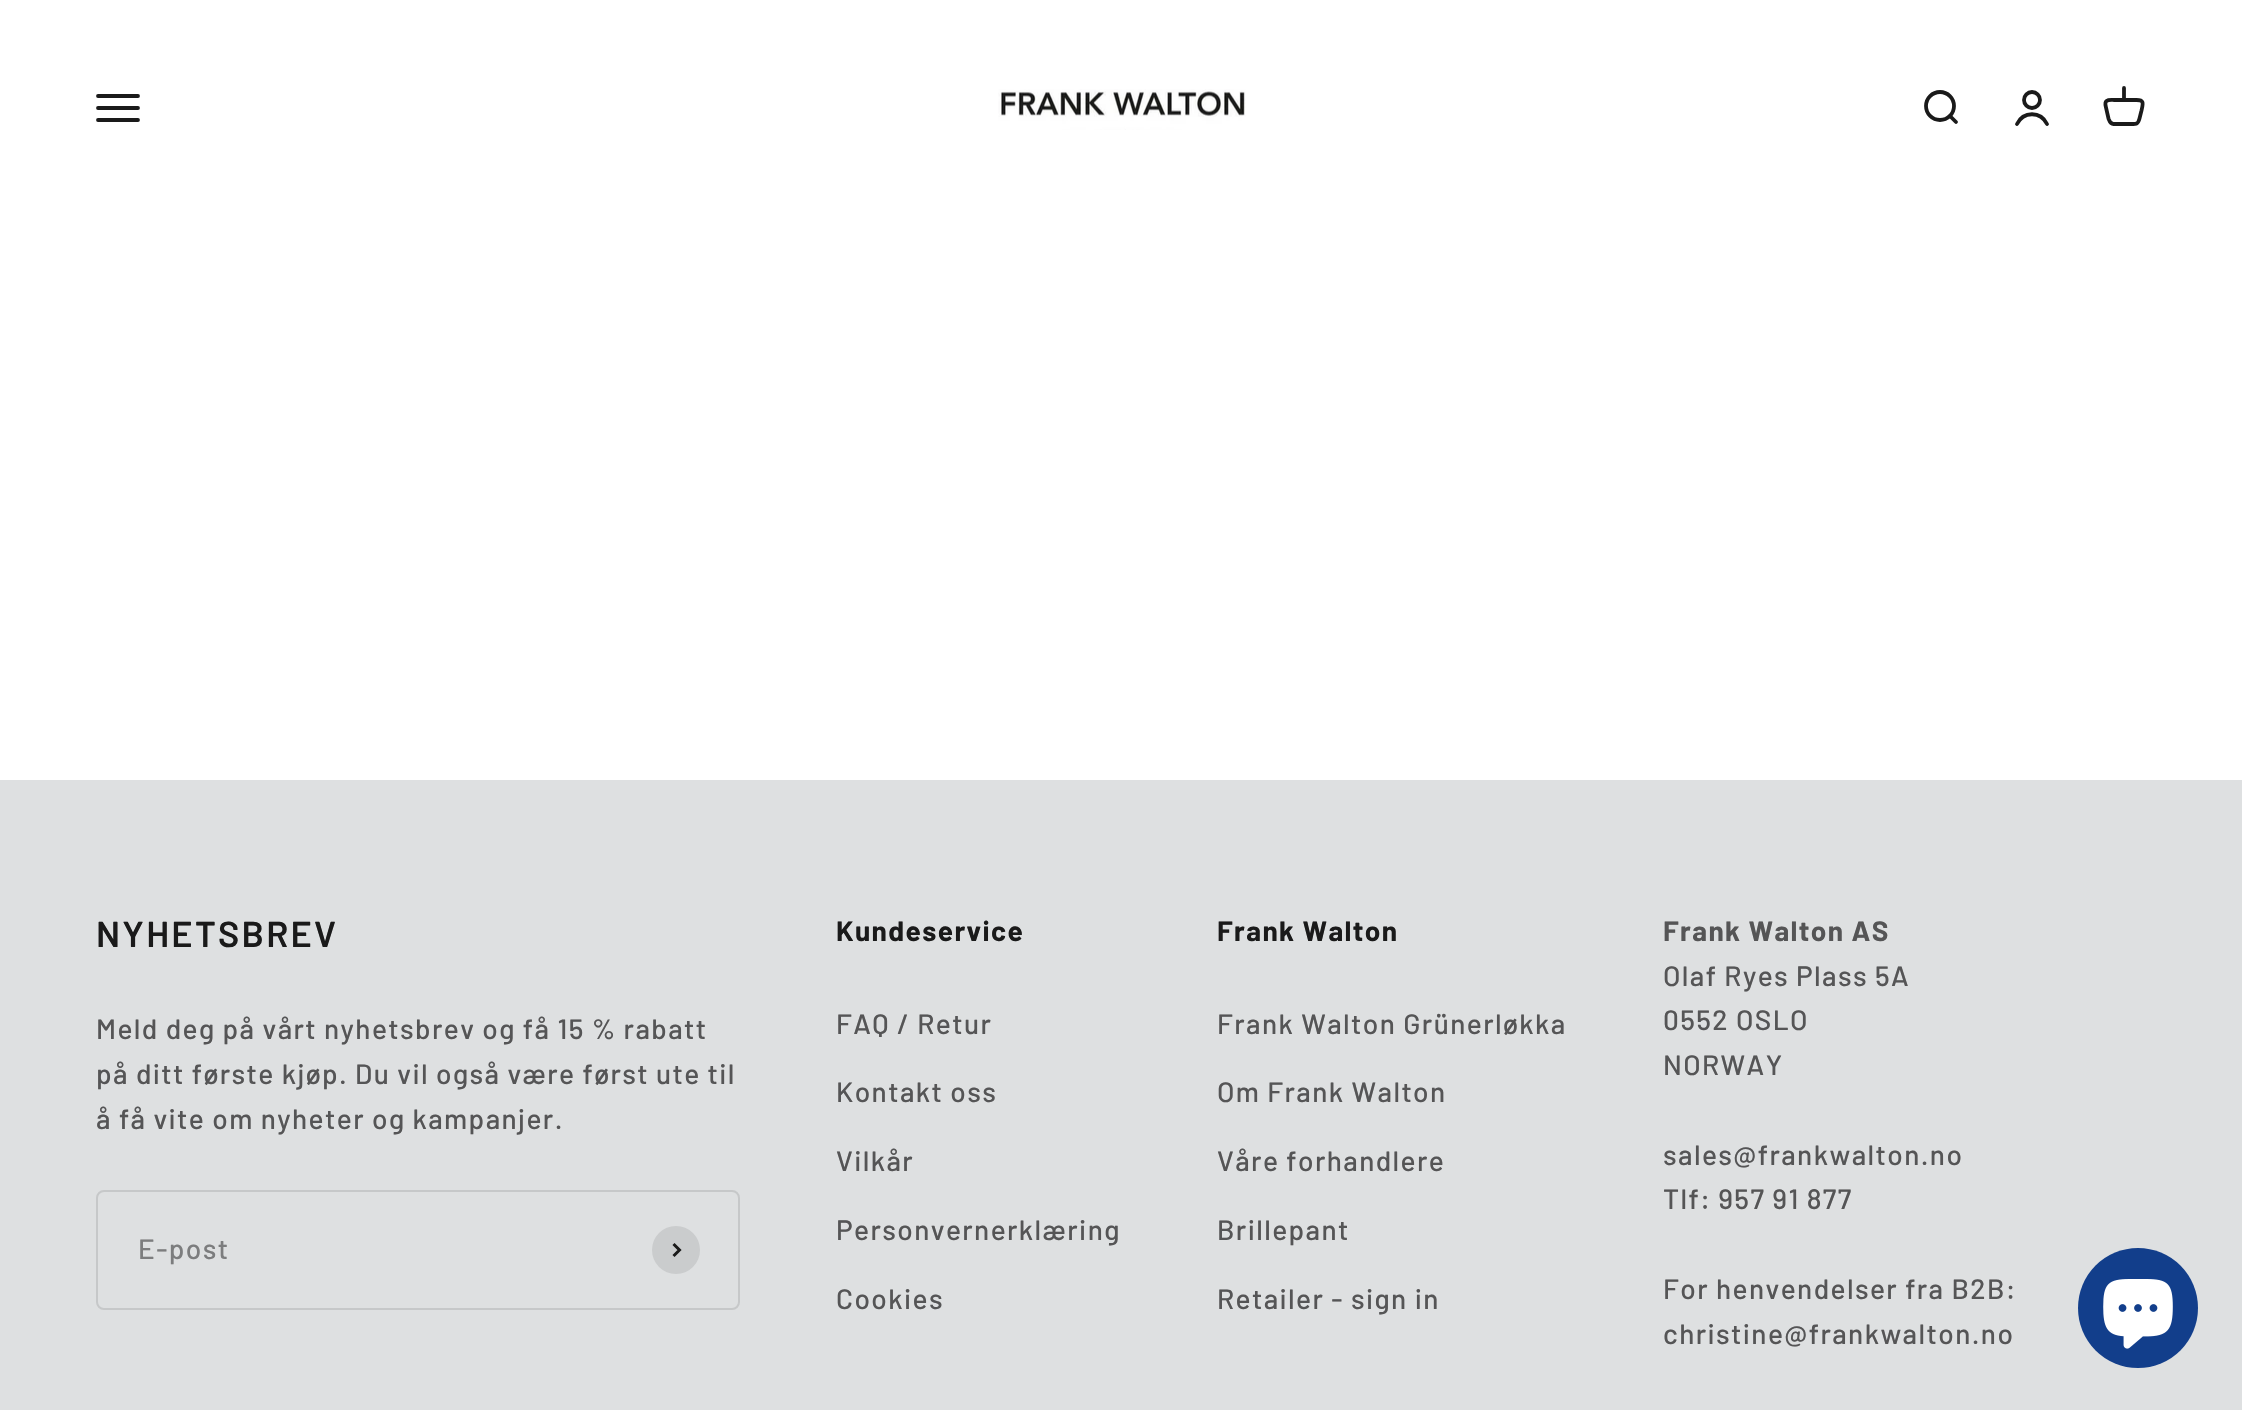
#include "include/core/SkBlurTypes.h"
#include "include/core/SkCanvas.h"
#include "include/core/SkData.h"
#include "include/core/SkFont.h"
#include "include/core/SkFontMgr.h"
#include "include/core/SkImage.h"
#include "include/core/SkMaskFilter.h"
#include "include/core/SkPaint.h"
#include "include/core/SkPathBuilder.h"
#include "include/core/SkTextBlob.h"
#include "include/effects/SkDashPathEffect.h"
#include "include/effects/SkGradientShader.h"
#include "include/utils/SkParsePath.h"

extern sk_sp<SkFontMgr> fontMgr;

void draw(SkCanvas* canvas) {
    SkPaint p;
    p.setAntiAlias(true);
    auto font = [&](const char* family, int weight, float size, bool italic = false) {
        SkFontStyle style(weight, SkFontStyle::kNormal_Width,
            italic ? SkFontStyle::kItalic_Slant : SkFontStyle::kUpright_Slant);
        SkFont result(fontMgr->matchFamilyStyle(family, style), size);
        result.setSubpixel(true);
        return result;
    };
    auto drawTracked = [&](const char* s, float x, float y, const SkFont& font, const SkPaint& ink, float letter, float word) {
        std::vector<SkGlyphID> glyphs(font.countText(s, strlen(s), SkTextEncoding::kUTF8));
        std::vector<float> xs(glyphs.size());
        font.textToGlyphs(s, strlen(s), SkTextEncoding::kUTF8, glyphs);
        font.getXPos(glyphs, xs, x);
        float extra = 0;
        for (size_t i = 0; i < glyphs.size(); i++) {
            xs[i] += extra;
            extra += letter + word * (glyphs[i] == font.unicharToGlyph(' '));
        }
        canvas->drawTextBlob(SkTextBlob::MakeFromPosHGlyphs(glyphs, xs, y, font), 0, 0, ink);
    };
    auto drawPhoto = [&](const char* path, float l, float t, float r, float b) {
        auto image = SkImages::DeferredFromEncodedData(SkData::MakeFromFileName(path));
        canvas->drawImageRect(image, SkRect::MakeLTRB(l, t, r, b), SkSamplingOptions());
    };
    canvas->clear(0xFFFFFFFF);
    p.setStyle(SkPaint::kStroke_Style);
    p.setStrokeWidth(3.8f);
    p.setStrokeCap(SkPaint::kRound_Cap);
    p.setColor(0xFF1A1A1A);
    canvas->drawPath(SkPathBuilder().moveTo(98, 96).lineTo(138, 96).moveTo(98, 108).lineTo(138, 108).moveTo(98, 120).lineTo(138, 120).detach(), p);
    drawPhoto("media/1.png", 998, 89, 1246, 130);
    p.setStrokeCap(SkPaint::kButt_Cap);
    canvas->drawCircle(1940, 106, 14, p);
    p.setStrokeCap(SkPaint::kRound_Cap);
    p.setStrokeJoin(SkPaint::kRound_Join);
    canvas->drawPath(SkPathBuilder().moveTo(1950, 116).lineTo(1956, 122).detach(), p);
    p.setStrokeCap(SkPaint::kButt_Cap);
    p.setStrokeJoin(SkPaint::kMiter_Join);
    canvas->drawCircle(2032, 100, 8, p);
    p.setStrokeCap(SkPaint::kRound_Cap);
    canvas->drawPath(SkPathBuilder().moveTo(2017, 124).cubicTo(2023.5f, 111, 2040.5f, 111, 2047, 124).detach(), p);
    p.setStrokeJoin(SkPaint::kRound_Join);
    canvas->drawPath(SkPathBuilder().moveTo(2124, 100).lineTo(2114, 100).cubicTo(2112, 100, 2108.5f, 99.5f, 2106.5f, 101).cubicTo(2104.5f, 102.5f, 2105.5f, 105.5f, 2106, 107.5f).lineTo(2108.5f, 118.5f).cubicTo(2109.5f, 121, 2110, 124, 2113.5f, 124).lineTo(2131, 124).cubicTo(2137, 124, 2138, 124, 2139.5f, 118.5f).lineTo(2141.5f, 110.5f).cubicTo(2143, 103.5f, 2144.5f, 100, 2136.5f, 100).close().moveTo(2124, 100).lineTo(2124, 88).detach(), p);
    p.setStyle(SkPaint::kFill_Style);
    p.setColor(0xFFDEE0E1);
    canvas->drawRect(SkRect::MakeLTRB(0, 780, 2242, 1410), p);
    auto font1 = font("Barlow", 600, 36);
    p.setColor(0xFF1A1A1A);
    drawTracked("NYHETSBREV", 96, 947, font1, p, 2.25f, 0);
    auto font2 = font("Barlow", 500, 28);
    p.setColor(0xFF555556);
    {
        const struct { const char* s; float x, y; } items[] = {
            {"Meld deg på vårt nyhetsbrev og få 15 % rabatt", 96, 1039},
            {"på ditt første kjøp. Du vil også være først ute til", 96, 1084},
            {"å få vite om nyheter og kampanjer.", 96, 1129},
        };
        for (auto [s, x, y] : items) {
            drawTracked(s, x, y, font2, p, 1.4f, 0);
        }
    }
    p.setStyle(SkPaint::kStroke_Style);
    p.setStrokeWidth(2);
    p.setStrokeCap(SkPaint::kButt_Cap);
    p.setStrokeJoin(SkPaint::kMiter_Join);
    p.setColor(0xFFC6C8C9);
    canvas->drawRoundRect(SkRect::MakeLTRB(97, 1191, 739, 1309), 7, 7, p);
    p.setStyle(SkPaint::kFill_Style);
    p.setColor(0xFF7C7D7E);
    drawTracked("E-post", 138, 1259, font2, p, 1.4f, 0);
    p.setColor(0xFFCACCCD);
    canvas->drawCircle(676, 1250, 24, p);
    p.setStyle(SkPaint::kStroke_Style);
    p.setStrokeWidth(3);
    p.setColor(0xFF1A1A1A);
    canvas->drawPath(SkPathBuilder().moveTo(673.5f, 1256).lineTo(679.5f, 1250).lineTo(673.5f, 1244).detach(), p);
    auto font3 = font("Barlow", 700, 28);
    p.setStyle(SkPaint::kFill_Style);
    drawTracked("Kundeservice", 836, 941, font3, p, 1.4f, 0);
    p.setColor(0xFF555556);
    {
        const struct { const char* s; float x, y; } items[] = {
            {"FAQ / Retur", 836, 1034},
            {"Kontakt oss", 836, 1102},
            {"Vilkår", 836, 1171},
            {"Personvernerklæring", 836, 1240},
            {"Cookies", 836, 1309},
        };
        for (auto [s, x, y] : items) {
            drawTracked(s, x, y, font2, p, 1.4f, 0);
        }
    }
    p.setColor(0xFF1A1A1A);
    drawTracked("Frank Walton", 1217, 941, font3, p, 1.4f, 0);
    p.setColor(0xFF555556);
    {
        const struct { const char* s; float x, y; } items[] = {
            {"Frank Walton Grünerløkka", 1217, 1034},
            {"Om Frank Walton", 1217, 1102},
            {"Våre forhandlere", 1217, 1171},
            {"Brillepant", 1217, 1240},
            {"Retailer - sign in", 1217, 1309},
        };
        for (auto [s, x, y] : items) {
            drawTracked(s, x, y, font2, p, 1.4f, 0);
        }
    }
    drawTracked("Frank Walton AS", 1663, 941, font3, p, 1.4f, 0);
    {
        const struct { const char* s; float x, y; } items[] = {
            {"Olaf Ryes Plass 5A", 1663, 986},
            {"0552 OSLO", 1663, 1030},
            {"NORWAY", 1663, 1075},
            {"sales@frankwalton.no", 1663, 1165},
            {"Tlf: 957 91 877", 1663, 1209},
            {"For henvendelser fra B2B:", 1663, 1299},
            {"christine@frankwalton.no", 1663, 1344},
        };
        for (auto [s, x, y] : items) {
            drawTracked(s, x, y, font2, p, 1.4f, 0);
        }
    }
    p.setColor(0xFF123E8B);
    canvas->drawCircle(2138, 1308, 60, p);
    drawPhoto("media/2.png", 2103, 1279, 2173, 1349);
}
